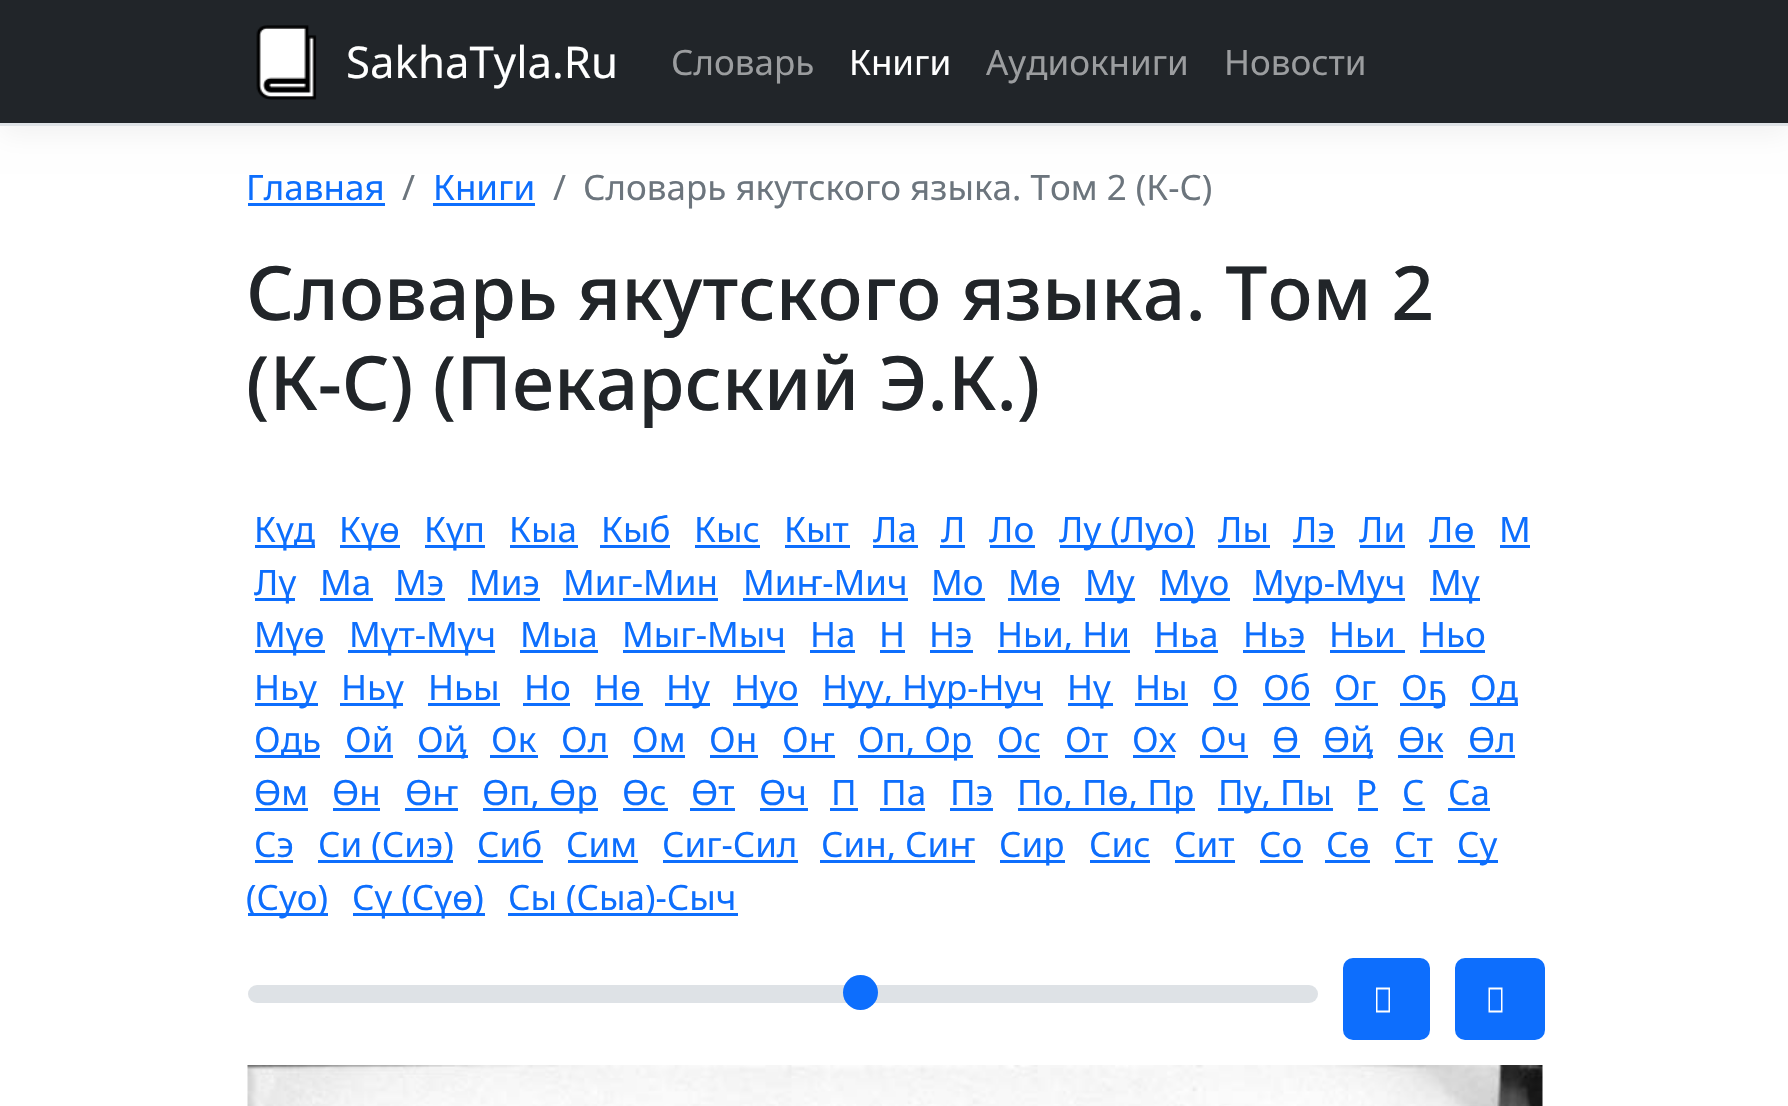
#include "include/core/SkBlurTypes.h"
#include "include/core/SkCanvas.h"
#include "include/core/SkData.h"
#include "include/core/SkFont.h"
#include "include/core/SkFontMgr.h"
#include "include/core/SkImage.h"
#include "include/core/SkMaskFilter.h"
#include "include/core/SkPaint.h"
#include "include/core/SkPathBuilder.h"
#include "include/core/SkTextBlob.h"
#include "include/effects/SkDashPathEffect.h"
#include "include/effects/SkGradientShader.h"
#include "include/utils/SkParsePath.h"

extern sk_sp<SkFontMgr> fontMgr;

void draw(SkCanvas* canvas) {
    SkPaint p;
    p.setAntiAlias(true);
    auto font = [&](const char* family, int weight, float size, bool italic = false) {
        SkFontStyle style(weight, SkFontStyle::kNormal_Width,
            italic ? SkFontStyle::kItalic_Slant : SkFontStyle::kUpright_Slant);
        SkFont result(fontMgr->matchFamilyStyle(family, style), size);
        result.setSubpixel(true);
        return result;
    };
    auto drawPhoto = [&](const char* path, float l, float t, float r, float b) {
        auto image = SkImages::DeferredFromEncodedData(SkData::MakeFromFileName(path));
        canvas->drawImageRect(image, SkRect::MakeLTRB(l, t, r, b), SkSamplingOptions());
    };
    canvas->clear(0xFFFFFFFF);
    p.setColor(0x0D000000);
    p.setMaskFilter(SkMaskFilter::MakeBlur(kNormal_SkBlurStyle, 13));
    canvas->drawRect(SkRect::MakeLTRB(0, 10, 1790, 135), p);
    p.setMaskFilter(nullptr);
    p.setColor(0xFF212529);
    canvas->drawRect(SkRect::MakeLTRB(0, 0, 1788, 123), p);
    p.setColor(0xFFDEE2E6);
    canvas->drawRect(SkRect::MakeLTRB(0, 123, 1788, 126), p);
    drawPhoto("media/1.png", 256, 25, 317, 100);
    auto font1 = font("Noto Sans", 400, 43.75f);
    p.setColor(0xFFFFFFFF);
    canvas->drawString("SakhaTyla.Ru", 346, 78, font1, p);
    auto font2 = font("Noto Sans", 400, 35);
    p.setColor(0xFF9B9D9F);
    canvas->drawString("Словарь", 671, 75, font2, p);
    p.setColor(0xFFFFFFFF);
    canvas->drawString("Книги", 849, 75, font2, p);
    p.setColor(0xFF9B9D9F);
    canvas->drawString("Аудиокниги", 986, 75, font2, p);
    canvas->drawString("Новости", 1224, 75, font2, p);
    p.setColor(0xFF0D6EFD);
    canvas->drawString("Главная", 246, 200, font2, p);
    canvas->drawRect(SkRect::MakeLTRB(248, 203, 385, 206), p);
    p.setColor(0xFF6C757D);
    canvas->drawString("/", 402, 200, font2, p);
    p.setColor(0xFF0D6EFD);
    canvas->drawString("Книги", 433, 200, font2, p);
    canvas->drawRect(SkRect::MakeLTRB(433, 203, 535, 206), p);
    p.setColor(0xFF6C757D);
    canvas->drawString("/", 553, 200, font2, p);
    canvas->drawString("Словарь якутского языка. Том 2 (К-С)", 583, 200, font2, p);
    auto font3 = font("Noto Sans", 500, 75);
    p.setColor(0xFF212529);
    canvas->drawString("Словарь якутского языка. Том 2", 246, 320, font3, p);
    canvas->drawString("(К-С) (Пекарский Э.К.)", 246, 410, font3, p);
    p.setColor(0xFF0D6EFD);
    canvas->drawRect(SkRect::MakeLTRB(255, 545, 315, 548), p);
    canvas->drawString("Күд", 254, 542, font2, p);
    canvas->drawRect(SkRect::MakeLTRB(340, 545, 400, 548), p);
    canvas->drawString("Күө", 339, 542, font2, p);
    canvas->drawRect(SkRect::MakeLTRB(425, 545, 485, 548), p);
    canvas->drawString("Күп", 424, 542, font2, p);
    canvas->drawString("Кыа", 509, 542, font2, p);
    canvas->drawRect(SkRect::MakeLTRB(510, 545, 578, 548), p);
    canvas->drawString("Кыб", 601, 542, font2, p);
    canvas->drawRect(SkRect::MakeLTRB(600, 545, 670, 548), p);
    canvas->drawString("Кыс", 694, 542, font2, p);
    canvas->drawRect(SkRect::MakeLTRB(695, 545, 760, 548), p);
    canvas->drawString("Кыт", 784, 542, font2, p);
    canvas->drawRect(SkRect::MakeLTRB(785, 545, 850, 548), p);
    canvas->drawString("Ла", 873, 542, font2, p);
    canvas->drawRect(SkRect::MakeLTRB(873, 545, 918, 548), p);
    canvas->drawString("Л", 941, 542, font2, p);
    canvas->drawRect(SkRect::MakeLTRB(940, 545, 965, 548), p);
    canvas->drawString("Ло", 989, 542, font2, p);
    canvas->drawRect(SkRect::MakeLTRB(990, 545, 1035, 548), p);
    canvas->drawRect(SkRect::MakeLTRB(1060, 545, 1195, 548), p);
    canvas->drawString("Лу (Луо)", 1059, 542, font2, p);
    canvas->drawString("Лы", 1218, 542, font2, p);
    canvas->drawRect(SkRect::MakeLTRB(1218, 545, 1270, 548), p);
    canvas->drawString("Лэ", 1293, 542, font2, p);
    canvas->drawRect(SkRect::MakeLTRB(1293, 545, 1335, 548), p);
    canvas->drawString("Ли", 1359, 542, font2, p);
    canvas->drawRect(SkRect::MakeLTRB(1360, 545, 1405, 548), p);
    canvas->drawString("Лө", 1429, 542, font2, p);
    canvas->drawRect(SkRect::MakeLTRB(1430, 545, 1475, 548), p);
    canvas->drawString("М", 1499, 542, font2, p);
    canvas->drawRect(SkRect::MakeLTRB(1500, 545, 1530, 548), p);
    canvas->drawRect(SkRect::MakeLTRB(255, 598, 295, 601), p);
    canvas->drawString("Лү", 254, 595, font2, p);
    canvas->drawString("Ма", 320, 595, font2, p);
    canvas->drawRect(SkRect::MakeLTRB(320, 598, 373, 601), p);
    canvas->drawString("Мэ", 395, 595, font2, p);
    canvas->drawRect(SkRect::MakeLTRB(395, 598, 445, 601), p);
    canvas->drawString("Миэ", 469, 595, font2, p);
    canvas->drawRect(SkRect::MakeLTRB(468, 598, 540, 601), p);
    canvas->drawString("Миг-Мин", 563, 595, font2, p);
    canvas->drawRect(SkRect::MakeLTRB(563, 598, 718, 601), p);
    canvas->drawString("Миҥ-Мич", 743, 595, font2, p);
    canvas->drawRect(SkRect::MakeLTRB(743, 598, 908, 601), p);
    canvas->drawString("Мо", 931, 595, font2, p);
    canvas->drawRect(SkRect::MakeLTRB(933, 598, 985, 601), p);
    canvas->drawString("Мө", 1008, 595, font2, p);
    canvas->drawRect(SkRect::MakeLTRB(1008, 598, 1060, 601), p);
    canvas->drawRect(SkRect::MakeLTRB(1085, 598, 1135, 601), p);
    canvas->drawString("Му", 1085, 595, font2, p);
    canvas->drawRect(SkRect::MakeLTRB(1160, 598, 1230, 601), p);
    canvas->drawString("Муо", 1159, 595, font2, p);
    canvas->drawRect(SkRect::MakeLTRB(1253, 598, 1405, 601), p);
    canvas->drawString("Мур-Муч", 1253, 595, font2, p);
    canvas->drawRect(SkRect::MakeLTRB(1430, 598, 1480, 601), p);
    canvas->drawString("Мү", 1430, 595, font2, p);
    canvas->drawRect(SkRect::MakeLTRB(255, 650, 325, 653), p);
    canvas->drawString("Мүө", 254, 647, font2, p);
    canvas->drawRect(SkRect::MakeLTRB(348, 650, 495, 653), p);
    canvas->drawString("Мүт-Мүч", 349, 647, font2, p);
    canvas->drawString("Мыа", 520, 647, font2, p);
    canvas->drawRect(SkRect::MakeLTRB(520, 650, 598, 653), p);
    canvas->drawString("Мыг-Мыч", 622, 647, font2, p);
    canvas->drawRect(SkRect::MakeLTRB(623, 650, 785, 653), p);
    canvas->drawString("На", 810, 647, font2, p);
    canvas->drawRect(SkRect::MakeLTRB(810, 650, 855, 653), p);
    canvas->drawString("Н", 879, 647, font2, p);
    canvas->drawRect(SkRect::MakeLTRB(880, 650, 905, 653), p);
    canvas->drawString("Нэ", 929, 647, font2, p);
    canvas->drawRect(SkRect::MakeLTRB(930, 650, 973, 653), p);
    canvas->drawRect(SkRect::MakeLTRB(998, 650, 1130, 653), p);
    canvas->drawString("Ньи, Ни", 997, 647, font2, p);
    canvas->drawString("Ньа", 1154, 647, font2, p);
    canvas->drawRect(SkRect::MakeLTRB(1155, 650, 1218, 653), p);
    canvas->drawString("Ньэ", 1243, 647, font2, p);
    canvas->drawRect(SkRect::MakeLTRB(1243, 650, 1305, 653), p);
    canvas->drawString("Ньи", 1329, 647, font2, p);
    canvas->drawRect(SkRect::MakeLTRB(1330, 650, 1405, 653), p);
    canvas->drawString("Ньо", 1420, 647, font2, p);
    canvas->drawRect(SkRect::MakeLTRB(1420, 650, 1485, 653), p);
    canvas->drawRect(SkRect::MakeLTRB(255, 703, 318, 706), p);
    canvas->drawString("Ньу", 254, 700, font2, p);
    canvas->drawRect(SkRect::MakeLTRB(340, 703, 403, 706), p);
    canvas->drawString("Ньү", 341, 700, font2, p);
    canvas->drawString("Ньы", 428, 700, font2, p);
    canvas->drawRect(SkRect::MakeLTRB(428, 703, 500, 706), p);
    canvas->drawString("Но", 524, 700, font2, p);
    canvas->drawRect(SkRect::MakeLTRB(523, 703, 570, 706), p);
    canvas->drawString("Нө", 594, 700, font2, p);
    canvas->drawRect(SkRect::MakeLTRB(595, 703, 643, 706), p);
    canvas->drawRect(SkRect::MakeLTRB(665, 703, 710, 706), p);
    canvas->drawString("Ну", 666, 700, font2, p);
    canvas->drawRect(SkRect::MakeLTRB(733, 703, 798, 706), p);
    canvas->drawString("Нуо", 734, 700, font2, p);
    canvas->drawRect(SkRect::MakeLTRB(823, 703, 1043, 706), p);
    canvas->drawString("Нуу, Нур-Нуч", 822, 700, font2, p);
    canvas->drawRect(SkRect::MakeLTRB(1068, 703, 1113, 706), p);
    canvas->drawString("Нү", 1067, 700, font2, p);
    canvas->drawString("Ны", 1135, 700, font2, p);
    canvas->drawRect(SkRect::MakeLTRB(1135, 703, 1188, 706), p);
    canvas->drawString("О", 1212, 700, font2, p);
    canvas->drawRect(SkRect::MakeLTRB(1213, 703, 1238, 706), p);
    canvas->drawString("Об", 1263, 700, font2, p);
    canvas->drawRect(SkRect::MakeLTRB(1263, 703, 1310, 706), p);
    canvas->drawString("Ог", 1334, 700, font2, p);
    canvas->drawRect(SkRect::MakeLTRB(1335, 703, 1378, 706), p);
    canvas->drawRect(SkRect::MakeLTRB(1400, 703, 1445, 706), p);
    canvas->drawString("Оҕ", 1401, 700, font2, p);
    canvas->drawRect(SkRect::MakeLTRB(1470, 703, 1518, 706), p);
    canvas->drawString("Од", 1470, 700, font2, p);
    canvas->drawRect(SkRect::MakeLTRB(255, 755, 320, 758), p);
    canvas->drawString("Одь", 254, 752, font2, p);
    canvas->drawString("Ой", 345, 752, font2, p);
    canvas->drawRect(SkRect::MakeLTRB(345, 755, 393, 758), p);
    canvas->drawRect(SkRect::MakeLTRB(418, 755, 468, 758), p);
    canvas->drawString("Оҋ", 417, 752, font2, p);
    canvas->drawString("Ок", 491, 752, font2, p);
    canvas->drawRect(SkRect::MakeLTRB(490, 755, 538, 758), p);
    canvas->drawString("Ол", 561, 752, font2, p);
    canvas->drawRect(SkRect::MakeLTRB(560, 755, 608, 758), p);
    canvas->drawString("Ом", 632, 752, font2, p);
    canvas->drawRect(SkRect::MakeLTRB(633, 755, 685, 758), p);
    canvas->drawString("Он", 709, 752, font2, p);
    canvas->drawRect(SkRect::MakeLTRB(710, 755, 758, 758), p);
    canvas->drawString("Оҥ", 782, 752, font2, p);
    canvas->drawRect(SkRect::MakeLTRB(783, 755, 835, 758), p);
    canvas->drawRect(SkRect::MakeLTRB(858, 755, 973, 758), p);
    canvas->drawString("Оп, Ор", 858, 752, font2, p);
    canvas->drawString("Ос", 997, 752, font2, p);
    canvas->drawRect(SkRect::MakeLTRB(998, 755, 1040, 758), p);
    canvas->drawString("От", 1065, 752, font2, p);
    canvas->drawRect(SkRect::MakeLTRB(1065, 755, 1108, 758), p);
    canvas->drawString("Ох", 1132, 752, font2, p);
    canvas->drawRect(SkRect::MakeLTRB(1133, 755, 1175, 758), p);
    canvas->drawString("Оч", 1200, 752, font2, p);
    canvas->drawRect(SkRect::MakeLTRB(1200, 755, 1248, 758), p);
    canvas->drawString("Ө", 1272, 752, font2, p);
    canvas->drawRect(SkRect::MakeLTRB(1273, 755, 1300, 758), p);
    canvas->drawRect(SkRect::MakeLTRB(1323, 755, 1373, 758), p);
    canvas->drawString("Өҋ", 1323, 752, font2, p);
    canvas->drawString("Өк", 1398, 752, font2, p);
    canvas->drawRect(SkRect::MakeLTRB(1398, 755, 1443, 758), p);
    canvas->drawString("Өл", 1468, 752, font2, p);
    canvas->drawRect(SkRect::MakeLTRB(1468, 755, 1515, 758), p);
    canvas->drawString("Өм", 254, 805, font2, p);
    canvas->drawRect(SkRect::MakeLTRB(255, 808, 308, 811), p);
    canvas->drawString("Өн", 332, 805, font2, p);
    canvas->drawRect(SkRect::MakeLTRB(333, 808, 380, 811), p);
    canvas->drawString("Өҥ", 405, 805, font2, p);
    canvas->drawRect(SkRect::MakeLTRB(405, 808, 458, 811), p);
    canvas->drawRect(SkRect::MakeLTRB(483, 808, 598, 811), p);
    canvas->drawString("Өп, Өр", 482, 805, font2, p);
    canvas->drawString("Өс", 622, 805, font2, p);
    canvas->drawRect(SkRect::MakeLTRB(623, 808, 668, 811), p);
    canvas->drawString("Өт", 691, 805, font2, p);
    canvas->drawRect(SkRect::MakeLTRB(690, 808, 735, 811), p);
    canvas->drawString("Өч", 759, 805, font2, p);
    canvas->drawRect(SkRect::MakeLTRB(760, 808, 808, 811), p);
    canvas->drawString("П", 831, 805, font2, p);
    canvas->drawRect(SkRect::MakeLTRB(830, 808, 858, 811), p);
    canvas->drawString("Па", 881, 805, font2, p);
    canvas->drawRect(SkRect::MakeLTRB(880, 808, 925, 811), p);
    canvas->drawString("Пэ", 950, 805, font2, p);
    canvas->drawRect(SkRect::MakeLTRB(950, 808, 993, 811), p);
    canvas->drawRect(SkRect::MakeLTRB(1018, 808, 1195, 811), p);
    canvas->drawString("По, Пө, Пр", 1017, 805, font2, p);
    canvas->drawRect(SkRect::MakeLTRB(1218, 808, 1333, 811), p);
    canvas->drawString("Пу, Пы", 1218, 805, font2, p);
    canvas->drawString("Р", 1356, 805, font2, p);
    canvas->drawRect(SkRect::MakeLTRB(1358, 808, 1378, 811), p);
    canvas->drawString("С", 1402, 805, font2, p);
    canvas->drawRect(SkRect::MakeLTRB(1403, 808, 1425, 811), p);
    canvas->drawString("Са", 1448, 805, font2, p);
    canvas->drawRect(SkRect::MakeLTRB(1448, 808, 1490, 811), p);
    canvas->drawString("Сэ", 254, 857, font2, p);
    canvas->drawRect(SkRect::MakeLTRB(255, 860, 293, 863), p);
    canvas->drawRect(SkRect::MakeLTRB(318, 860, 453, 863), p);
    canvas->drawString("Си (Сиэ)", 318, 857, font2, p);
    canvas->drawString("Сиб", 477, 857, font2, p);
    canvas->drawRect(SkRect::MakeLTRB(478, 860, 543, 863), p);
    canvas->drawString("Сим", 566, 857, font2, p);
    canvas->drawRect(SkRect::MakeLTRB(568, 860, 638, 863), p);
    canvas->drawString("Сиг-Сил", 662, 857, font2, p);
    canvas->drawRect(SkRect::MakeLTRB(663, 860, 798, 863), p);
    canvas->drawRect(SkRect::MakeLTRB(820, 860, 975, 863), p);
    canvas->drawString("Син, Сиҥ", 821, 857, font2, p);
    canvas->drawRect(SkRect::MakeLTRB(1000, 860, 1065, 863), p);
    canvas->drawString("Сир", 999, 857, font2, p);
    canvas->drawString("Сис", 1089, 857, font2, p);
    canvas->drawRect(SkRect::MakeLTRB(1090, 860, 1150, 863), p);
    canvas->drawString("Сит", 1174, 857, font2, p);
    canvas->drawRect(SkRect::MakeLTRB(1175, 860, 1235, 863), p);
    canvas->drawString("Со", 1259, 857, font2, p);
    canvas->drawRect(SkRect::MakeLTRB(1260, 860, 1303, 863), p);
    canvas->drawString("Сө", 1326, 857, font2, p);
    canvas->drawRect(SkRect::MakeLTRB(1325, 860, 1370, 863), p);
    canvas->drawString("Ст", 1394, 857, font2, p);
    canvas->drawRect(SkRect::MakeLTRB(1395, 860, 1433, 863), p);
    canvas->drawRect(SkRect::MakeLTRB(1458, 860, 1498, 863), p);
    canvas->drawString("Су", 1457, 857, font2, p);
    canvas->drawRect(SkRect::MakeLTRB(248, 913, 328, 916), p);
    canvas->drawString("(Суо)", 246, 910, font2, p);
    canvas->drawRect(SkRect::MakeLTRB(353, 913, 485, 916), p);
    canvas->drawString("Сү (Сүө)", 352, 910, font2, p);
    canvas->drawRect(SkRect::MakeLTRB(508, 913, 738, 916), p);
    canvas->drawString("Сы (Сыа)-Сыч", 508, 910, font2, p);
    p.setColor(0xFFDEE2E6);
    canvas->drawRoundRect(SkRect::MakeLTRB(248, 985, 1318, 1003), 9, 9, p);
    p.setColor(0xFF0D6EFD);
    canvas->drawCircle(860.5f, 992.5f, 17.5f, p);
    canvas->drawRoundRect(SkRect::MakeLTRB(1344.5f, 959.5f, 1428.5f, 1038.5f), 8.5f, 8.5f, p);
    p.setStyle(SkPaint::kStroke_Style);
    p.setStrokeWidth(3);
    canvas->drawRoundRect(SkRect::MakeLTRB(1344.5f, 959.5f, 1428.5f, 1038.5f), 8.5f, 8.5f, p);
    p.setStyle(SkPaint::kFill_Style);
    p.setColor(0xFFFFFFFF);
    canvas->drawPath(SkPathBuilder().moveTo(1376, 1012.5f).lineTo(1376, 987.5f).lineTo(1390, 987.5f).lineTo(1390, 1012.5f).close().moveTo(1377.5f, 1010.5f).lineTo(1388.5f, 1010.5f).lineTo(1388.5f, 989.5f).lineTo(1377.5f, 989.5f).close().detach(), p);
    p.setColor(0xFF0D6EFD);
    canvas->drawRoundRect(SkRect::MakeLTRB(1456.5f, 959.5f, 1543.5f, 1038.5f), 8.5f, 8.5f, p);
    p.setStyle(SkPaint::kStroke_Style);
    canvas->drawRoundRect(SkRect::MakeLTRB(1456.5f, 959.5f, 1543.5f, 1038.5f), 8.5f, 8.5f, p);
    p.setStyle(SkPaint::kFill_Style);
    p.setColor(0xFFFFFFFF);
    canvas->drawPath(SkPathBuilder().moveTo(1488.5f, 1012.5f).lineTo(1488.5f, 987.5f).lineTo(1502.5f, 987.5f).lineTo(1502.5f, 1012.5f).close().moveTo(1490, 1010.5f).lineTo(1501, 1010.5f).lineTo(1501, 989.5f).lineTo(1490, 989.5f).close().detach(), p);
    drawPhoto("media/2.png", 247, 1065, 1543, 1106);
}
